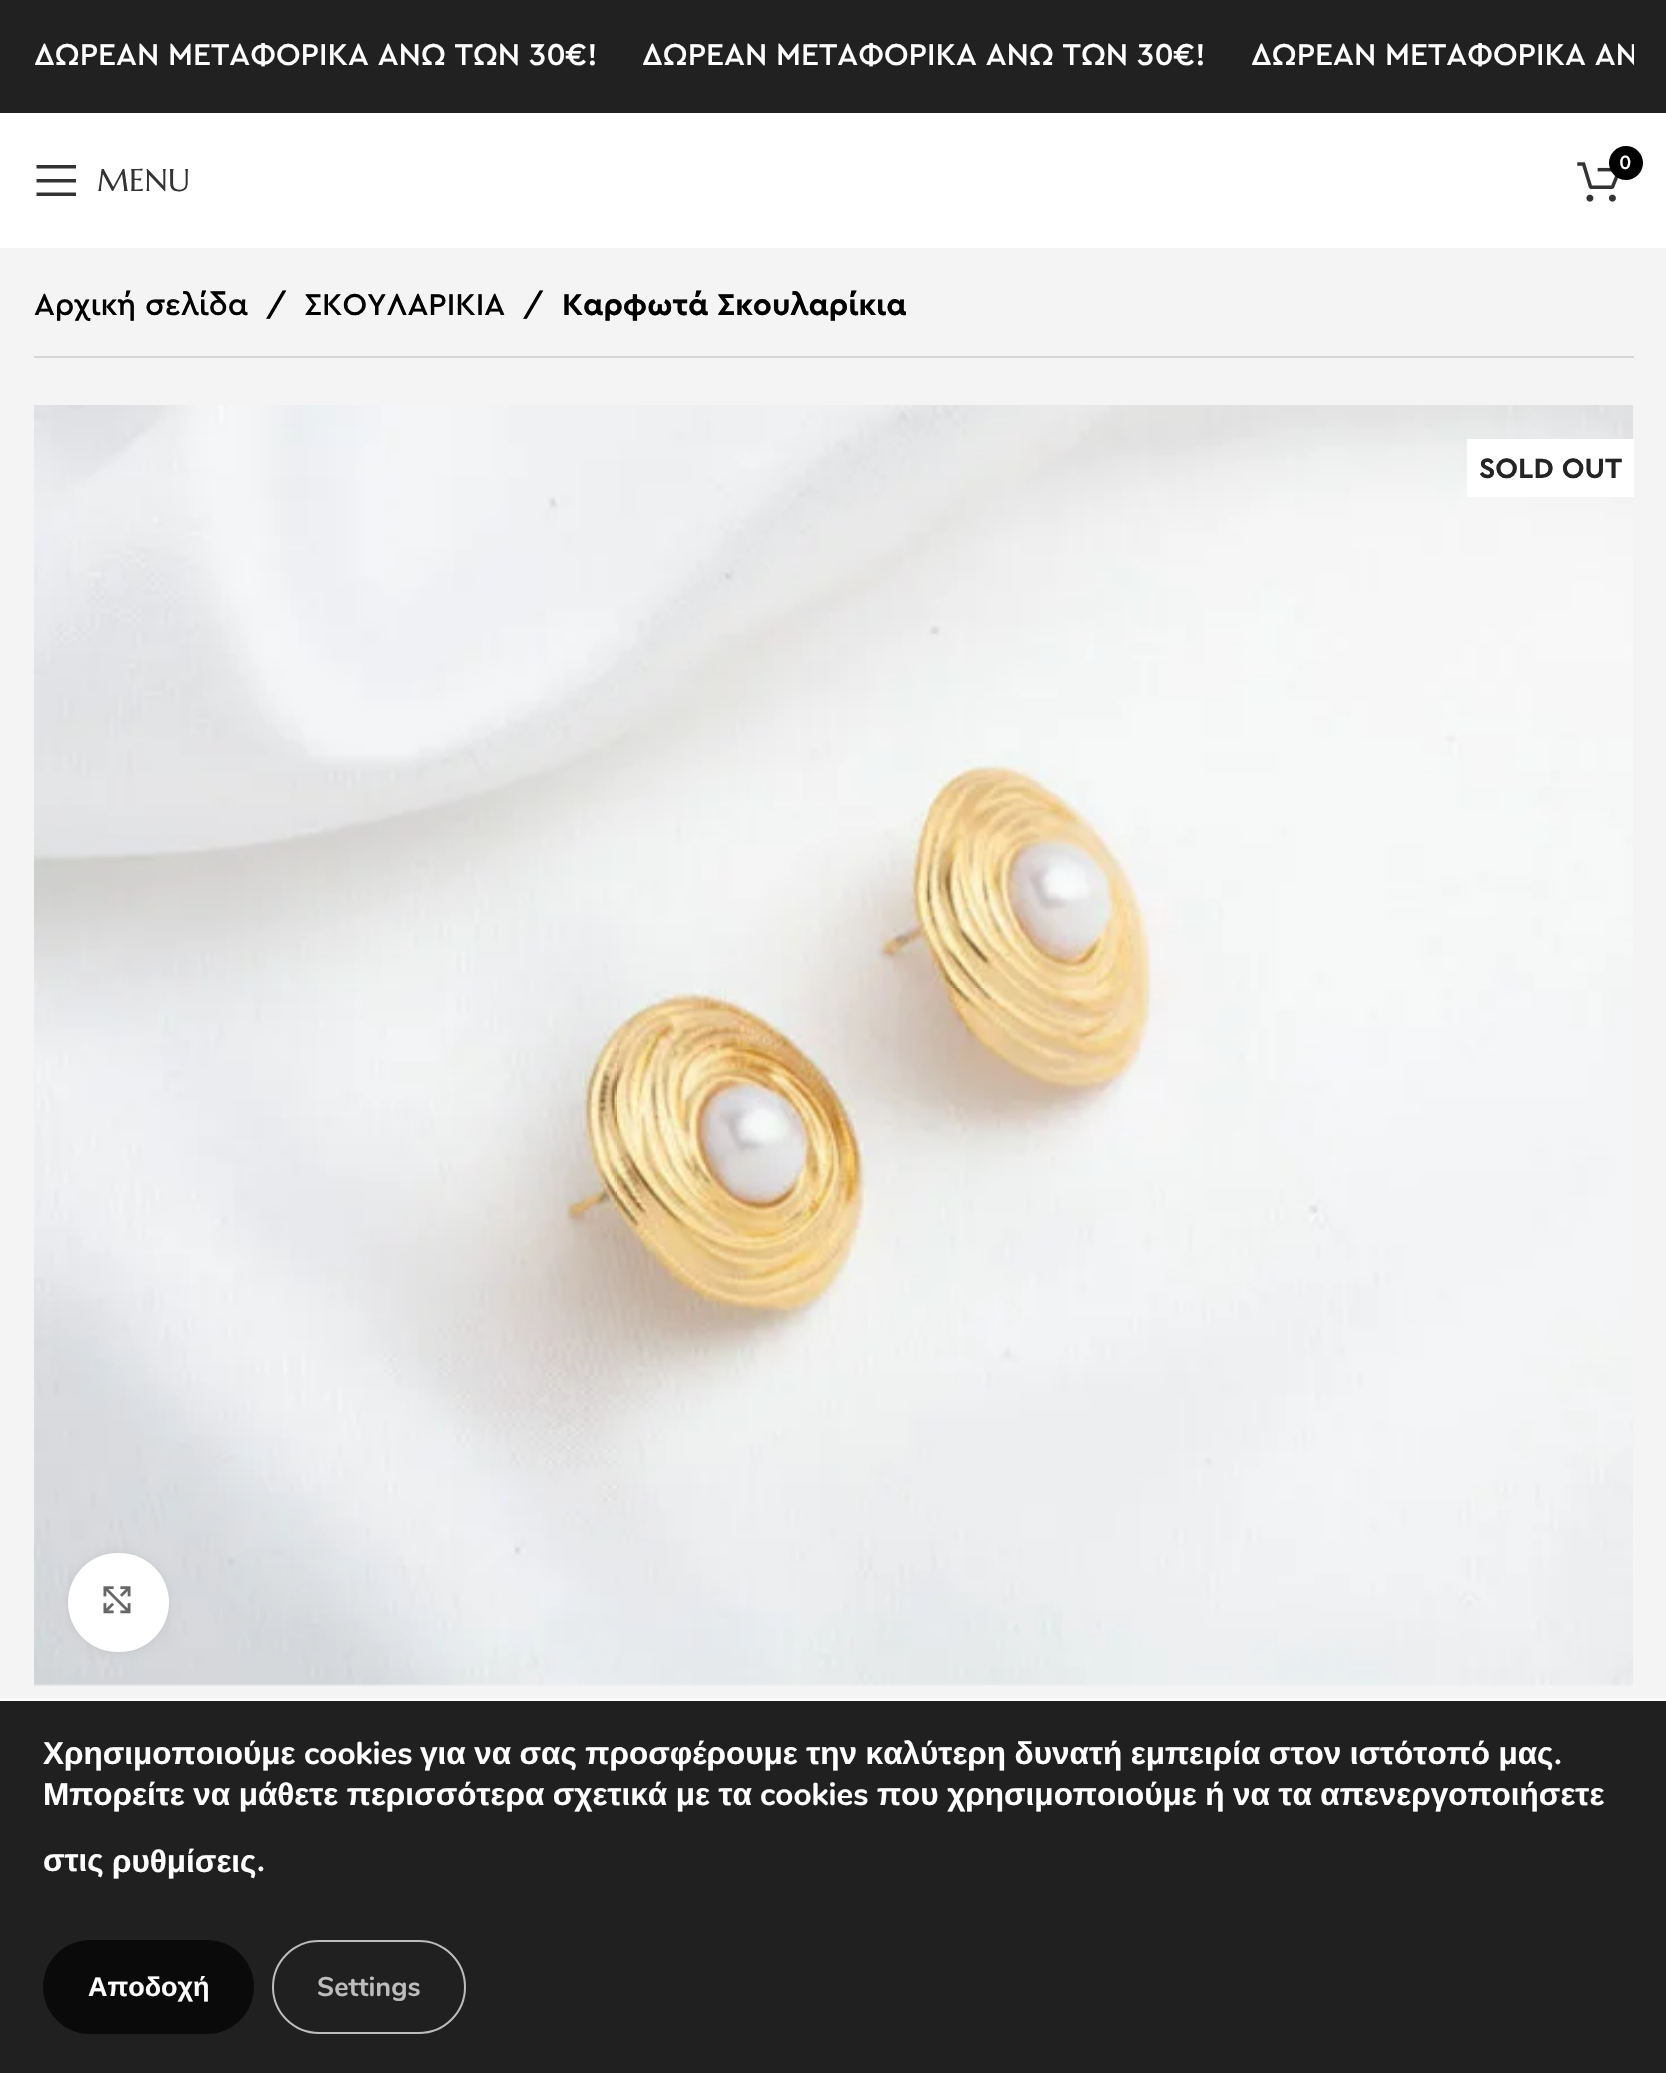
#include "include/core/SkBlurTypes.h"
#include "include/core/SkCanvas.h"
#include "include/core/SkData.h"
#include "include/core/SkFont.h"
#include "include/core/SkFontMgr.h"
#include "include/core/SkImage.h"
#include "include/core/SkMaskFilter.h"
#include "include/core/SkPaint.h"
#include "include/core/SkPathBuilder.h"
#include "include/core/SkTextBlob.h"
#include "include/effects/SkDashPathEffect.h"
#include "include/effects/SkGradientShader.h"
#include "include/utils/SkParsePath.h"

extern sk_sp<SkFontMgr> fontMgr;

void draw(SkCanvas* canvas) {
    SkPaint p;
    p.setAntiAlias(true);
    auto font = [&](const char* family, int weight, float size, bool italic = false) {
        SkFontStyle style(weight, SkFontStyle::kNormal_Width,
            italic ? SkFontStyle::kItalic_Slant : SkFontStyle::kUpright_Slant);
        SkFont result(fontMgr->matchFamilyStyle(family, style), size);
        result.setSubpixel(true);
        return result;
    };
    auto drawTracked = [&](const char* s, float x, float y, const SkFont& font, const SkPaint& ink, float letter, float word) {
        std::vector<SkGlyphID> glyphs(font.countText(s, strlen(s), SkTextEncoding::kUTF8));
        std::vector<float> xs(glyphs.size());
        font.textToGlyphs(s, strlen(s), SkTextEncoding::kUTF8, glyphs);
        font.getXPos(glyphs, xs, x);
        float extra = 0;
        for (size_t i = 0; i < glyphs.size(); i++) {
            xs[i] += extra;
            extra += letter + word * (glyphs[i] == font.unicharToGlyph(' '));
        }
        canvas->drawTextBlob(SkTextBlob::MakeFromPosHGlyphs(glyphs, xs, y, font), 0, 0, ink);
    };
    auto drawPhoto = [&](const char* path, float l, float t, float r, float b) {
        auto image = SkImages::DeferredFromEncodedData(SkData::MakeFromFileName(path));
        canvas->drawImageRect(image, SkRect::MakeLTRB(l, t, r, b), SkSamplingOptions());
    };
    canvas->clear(0xFFFFFFFF);
    p.setColor(0xFF212121);
    canvas->drawRect(SkRect::MakeLTRB(0, 0, 1666, 113), p);
    auto font1 = font("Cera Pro", 500, 31.5f);
    p.setColor(0xFFFFFFFF);
    canvas->drawString("ΔΩΡΕΑΝ ΜΕΤΑΦΟΡΙΚΑ ΑΝΩ ΤΩΝ 30€!", 34, 65, font1, p);
    canvas->drawString("ΔΩΡΕΑΝ ΜΕΤΑΦΟΡΙΚΑ ΑΝΩ ΤΩΝ 30€!", 642, 65, font1, p);
    canvas->save();
    canvas->clipRect(SkRect::MakeLTRB(34, 32, 1634, 81));
    canvas->drawString("ΔΩΡΕΑΝ ΜΕΤΑΦΟΡΙΚΑ ΑΝ", 1251, 65, font1, p);
    canvas->restore();
    drawPhoto("media/1.png", 1577, 162, 1618, 202);
    p.setColor(0xFF000000);
    canvas->drawCircle(1626, 163, 17, p);
    auto font2 = font("Cera Pro", 500, 20);
    p.setColor(0xFFFFFFFF);
    canvas->drawString("0", 1619, 169, font2, p);
    p.setColor(0xFF333333);
    canvas->drawPath(SkPathBuilder().moveTo(36.5f, 168.5f).lineTo(76, 168.5f).lineTo(76, 165).lineTo(36.5f, 165).close().moveTo(36.5f, 182.5f).lineTo(76, 182.5f).lineTo(76, 179).lineTo(36.5f, 179).close().moveTo(36.5f, 196).lineTo(76, 196).lineTo(76, 192.5f).lineTo(36.5f, 192.5f).close().detach(), p);
    auto font3 = font("Marcellus SC", 400, 31.5f);
    canvas->drawString("MENU", 97, 191, font3, p);
    p.setColor(0xFFF4F4F4);
    canvas->drawRect(SkRect::MakeLTRB(0, 248, 1666, 1699), p);
    p.setColor(0xFF000000);
    {
        const struct { const char* s; float x, y; } items[] = {
            {"Αρχική σελίδα", 34, 315},
            {"/", 266, 315},
            {"ΣΚΟΥΛΑΡΙΚΙΑ", 304, 315},
            {"/", 523, 315},
        };
        for (auto [s, x, y] : items) {
            canvas->drawString(s, x, y, font1, p);
        }
    }
    auto font4 = font("Cera Pro", 700, 31.5f);
    canvas->drawString("Καρφωτά Σκουλαρίκια", 562, 315, font4, p);
    p.setColor(0xFFD7D7D7);
    canvas->drawRect(SkRect::MakeLTRB(34, 356, 1634, 358), p);
    drawPhoto("media/2.png", 34, 405, 1633, 1686);
    p.setColor(0xFFFFFFFF);
    canvas->drawRect(SkRect::MakeLTRB(1467, 439, 1634, 497), p);
    auto font5 = font("Cera Pro", 700, 29.25f);
    p.setColor(0xFF242424);
    canvas->drawString("SOLD OUT", 1479, 478, font5, p);
    p.setColor(0x14000000);
    p.setMaskFilter(SkMaskFilter::MakeBlur(kNormal_SkBlurStyle, 5.5f));
    canvas->drawRoundRect(SkRect::MakeLTRB(68, 1553, 169, 1652), 49.5f, 49.5f, p);
    p.setMaskFilter(nullptr);
    p.setColor(0xFFFFFFFF);
    canvas->drawRoundRect(SkRect::MakeLTRB(68, 1553, 169, 1652), 49.5f, 49.5f, p);
    drawPhoto("media/3.png", 103, 1586, 131, 1614);
    p.setColor(0xFF202020);
    canvas->drawRect(SkRect::MakeLTRB(0, 1701, 1666, 2073), p);
    auto font6 = font("Liberation Sans", 700, 31.5f);
    p.setColor(0xFFFFFFFF);
    canvas->drawString("Χρησιμοποιούμε", 43, 1764, font6, p);
    auto font7 = font("Nunito", 700, 31.5f);
    canvas->drawString("cookies", 304, 1764, font7, p);
    drawTracked("για να σας προσφέρουμε την καλύτερη δυνατή εμπειρία στον ιστότοπό μας", 420, 1764, font6, p, 0, -0.25f);
    canvas->drawString(".", 1554, 1764, font7, p);
    drawTracked("Μπορείτε να μάθετε περισσότερα σχετικά με τα", 43, 1805, font6, p, 0, -0.25f);
    canvas->drawString("cookies", 760, 1805, font7, p);
    drawTracked("που χρησιμοποιούμε ή να τα απενεργοποιήσετε", 877, 1805, font6, p, 0, -0.25f);
    canvas->drawString("στις", 43, 1871, font6, p);
    canvas->drawString("ρυθμίσεις", 112, 1872, font6, p);
    canvas->drawString(".", 257, 1871, font7, p);
    p.setColor(0xFF0A0A0A);
    canvas->drawRoundRect(SkRect::MakeLTRB(43, 1940, 254, 2034), 47, 47, p);
    auto font8 = font("Liberation Sans", 700, 27);
    p.setColor(0xFFFFFFFF);
    canvas->drawString("Αποδοχή", 88, 1996, font8, p);
    p.setStyle(SkPaint::kStroke_Style);
    p.setStrokeWidth(2);
    p.setColor(0xFFBCBCBC);
    canvas->drawRoundRect(SkRect::MakeLTRB(273, 1941, 465, 2033), 46, 46, p);
    auto font9 = font("Nunito", 700, 27);
    p.setStyle(SkPaint::kFill_Style);
    canvas->drawString("Settings", 317, 1996, font9, p);
}
